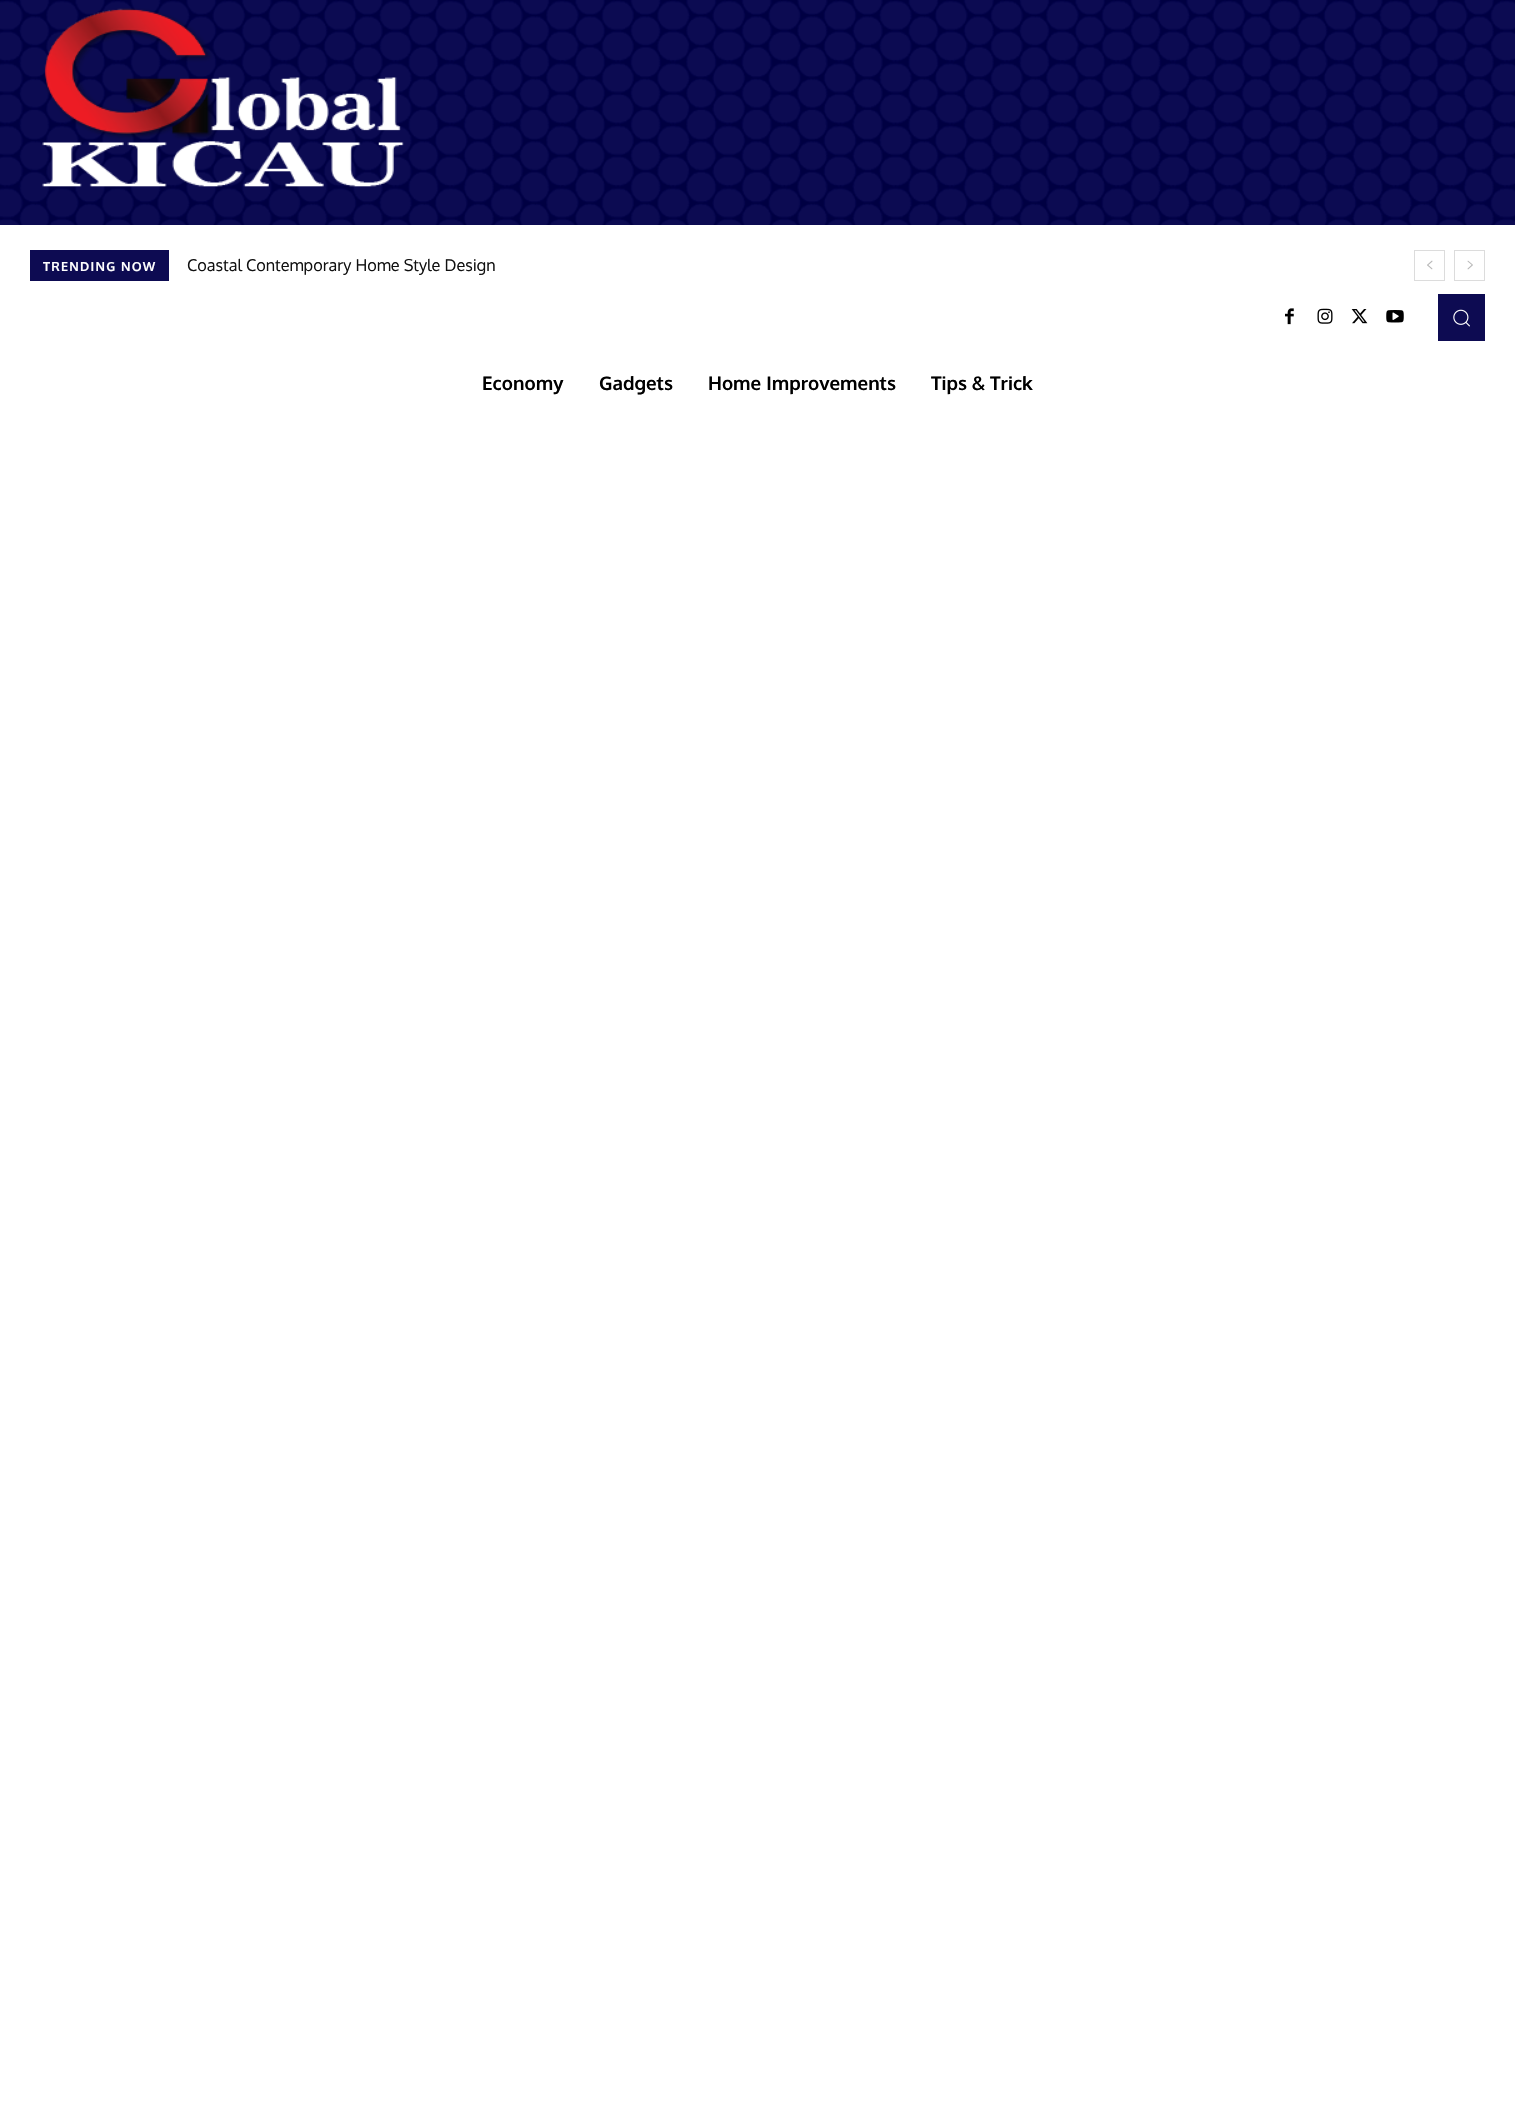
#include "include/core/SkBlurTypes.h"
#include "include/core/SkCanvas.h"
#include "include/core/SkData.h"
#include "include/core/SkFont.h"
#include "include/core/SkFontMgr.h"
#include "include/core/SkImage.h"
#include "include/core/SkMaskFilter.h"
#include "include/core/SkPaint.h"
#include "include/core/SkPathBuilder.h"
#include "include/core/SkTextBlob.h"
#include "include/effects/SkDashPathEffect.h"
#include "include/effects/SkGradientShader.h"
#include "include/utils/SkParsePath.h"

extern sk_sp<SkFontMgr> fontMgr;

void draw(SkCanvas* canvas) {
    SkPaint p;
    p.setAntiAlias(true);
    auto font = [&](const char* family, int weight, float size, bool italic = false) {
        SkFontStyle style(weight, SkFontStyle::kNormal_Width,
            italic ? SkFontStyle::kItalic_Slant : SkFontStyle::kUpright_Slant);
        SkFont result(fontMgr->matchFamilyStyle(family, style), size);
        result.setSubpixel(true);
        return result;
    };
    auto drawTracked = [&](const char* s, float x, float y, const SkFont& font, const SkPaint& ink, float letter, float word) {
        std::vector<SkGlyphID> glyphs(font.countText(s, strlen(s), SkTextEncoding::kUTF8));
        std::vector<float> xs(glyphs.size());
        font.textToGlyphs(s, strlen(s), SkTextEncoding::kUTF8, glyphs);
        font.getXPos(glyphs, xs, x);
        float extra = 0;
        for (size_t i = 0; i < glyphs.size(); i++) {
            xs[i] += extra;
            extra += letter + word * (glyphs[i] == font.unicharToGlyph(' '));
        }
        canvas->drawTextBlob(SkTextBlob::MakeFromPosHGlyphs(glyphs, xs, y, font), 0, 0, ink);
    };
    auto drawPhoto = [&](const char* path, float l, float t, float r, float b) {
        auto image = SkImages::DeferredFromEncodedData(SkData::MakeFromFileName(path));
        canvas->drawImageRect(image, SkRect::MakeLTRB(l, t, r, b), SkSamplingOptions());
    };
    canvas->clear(0xFFFFFFFF);
    drawPhoto("media/1.png", 0, 0, 1515, 225);
    drawPhoto("media/2.png", 42, 8, 404, 187);
    p.setColor(0xFF0D0B52);
    canvas->drawRect(SkRect::MakeLTRB(30, 250, 169, 281), p);
    auto font1 = font("Oxygen", 700, 12.5f);
    p.setColor(0xFFFFFFFF);
    drawTracked("TRENDING NOW", 43, 271, font1, p, 1.25f, 0);
    auto font2 = font("Oxygen", 400, 16.25f);
    p.setColor(0xFF111111);
    canvas->drawString("Coastal Contemporary Home Style Design", 187, 271, font2, p);
    p.setStyle(SkPaint::kStroke_Style);
    p.setStrokeWidth(1);
    p.setColor(0xFFDCDCDC);
    canvas->drawRect(SkRect::MakeLTRB(1414.5f, 250.5f, 1444.5f, 280.5f), p);
    drawPhoto("media/3.png", 1427, 260, 1433, 270);
    canvas->drawRect(SkRect::MakeLTRB(1454.5f, 250.5f, 1484.5f, 280.5f), p);
    drawPhoto("media/4.png", 1467, 260, 1473, 270);
    drawPhoto("media/5.png", 1285, 308, 1294, 325);
    drawPhoto("media/6.png", 1317, 308, 1333, 324);
    drawPhoto("media/7.png", 1351, 309, 1368, 324);
    drawPhoto("media/8.png", 1386, 310, 1404, 323);
    p.setStyle(SkPaint::kFill_Style);
    p.setColor(0xFF0D0B52);
    canvas->drawRect(SkRect::MakeLTRB(1438, 294, 1485, 341), p);
    drawPhoto("media/9.png", 1453, 309, 1470, 327);
    auto font3 = font("Oxygen", 700, 18.75f);
    p.setColor(0xFF000000);
    {
        const struct { const char* s; float x, y; } items[] = {
            {"Economy", 482, 390},
            {"Gadgets", 599, 390},
            {"Home Improvements", 708, 390},
            {"Tips & Trick", 931, 390},
        };
        for (auto [s, x, y] : items) {
            canvas->drawString(s, x, y, font3, p);
        }
    }
}
